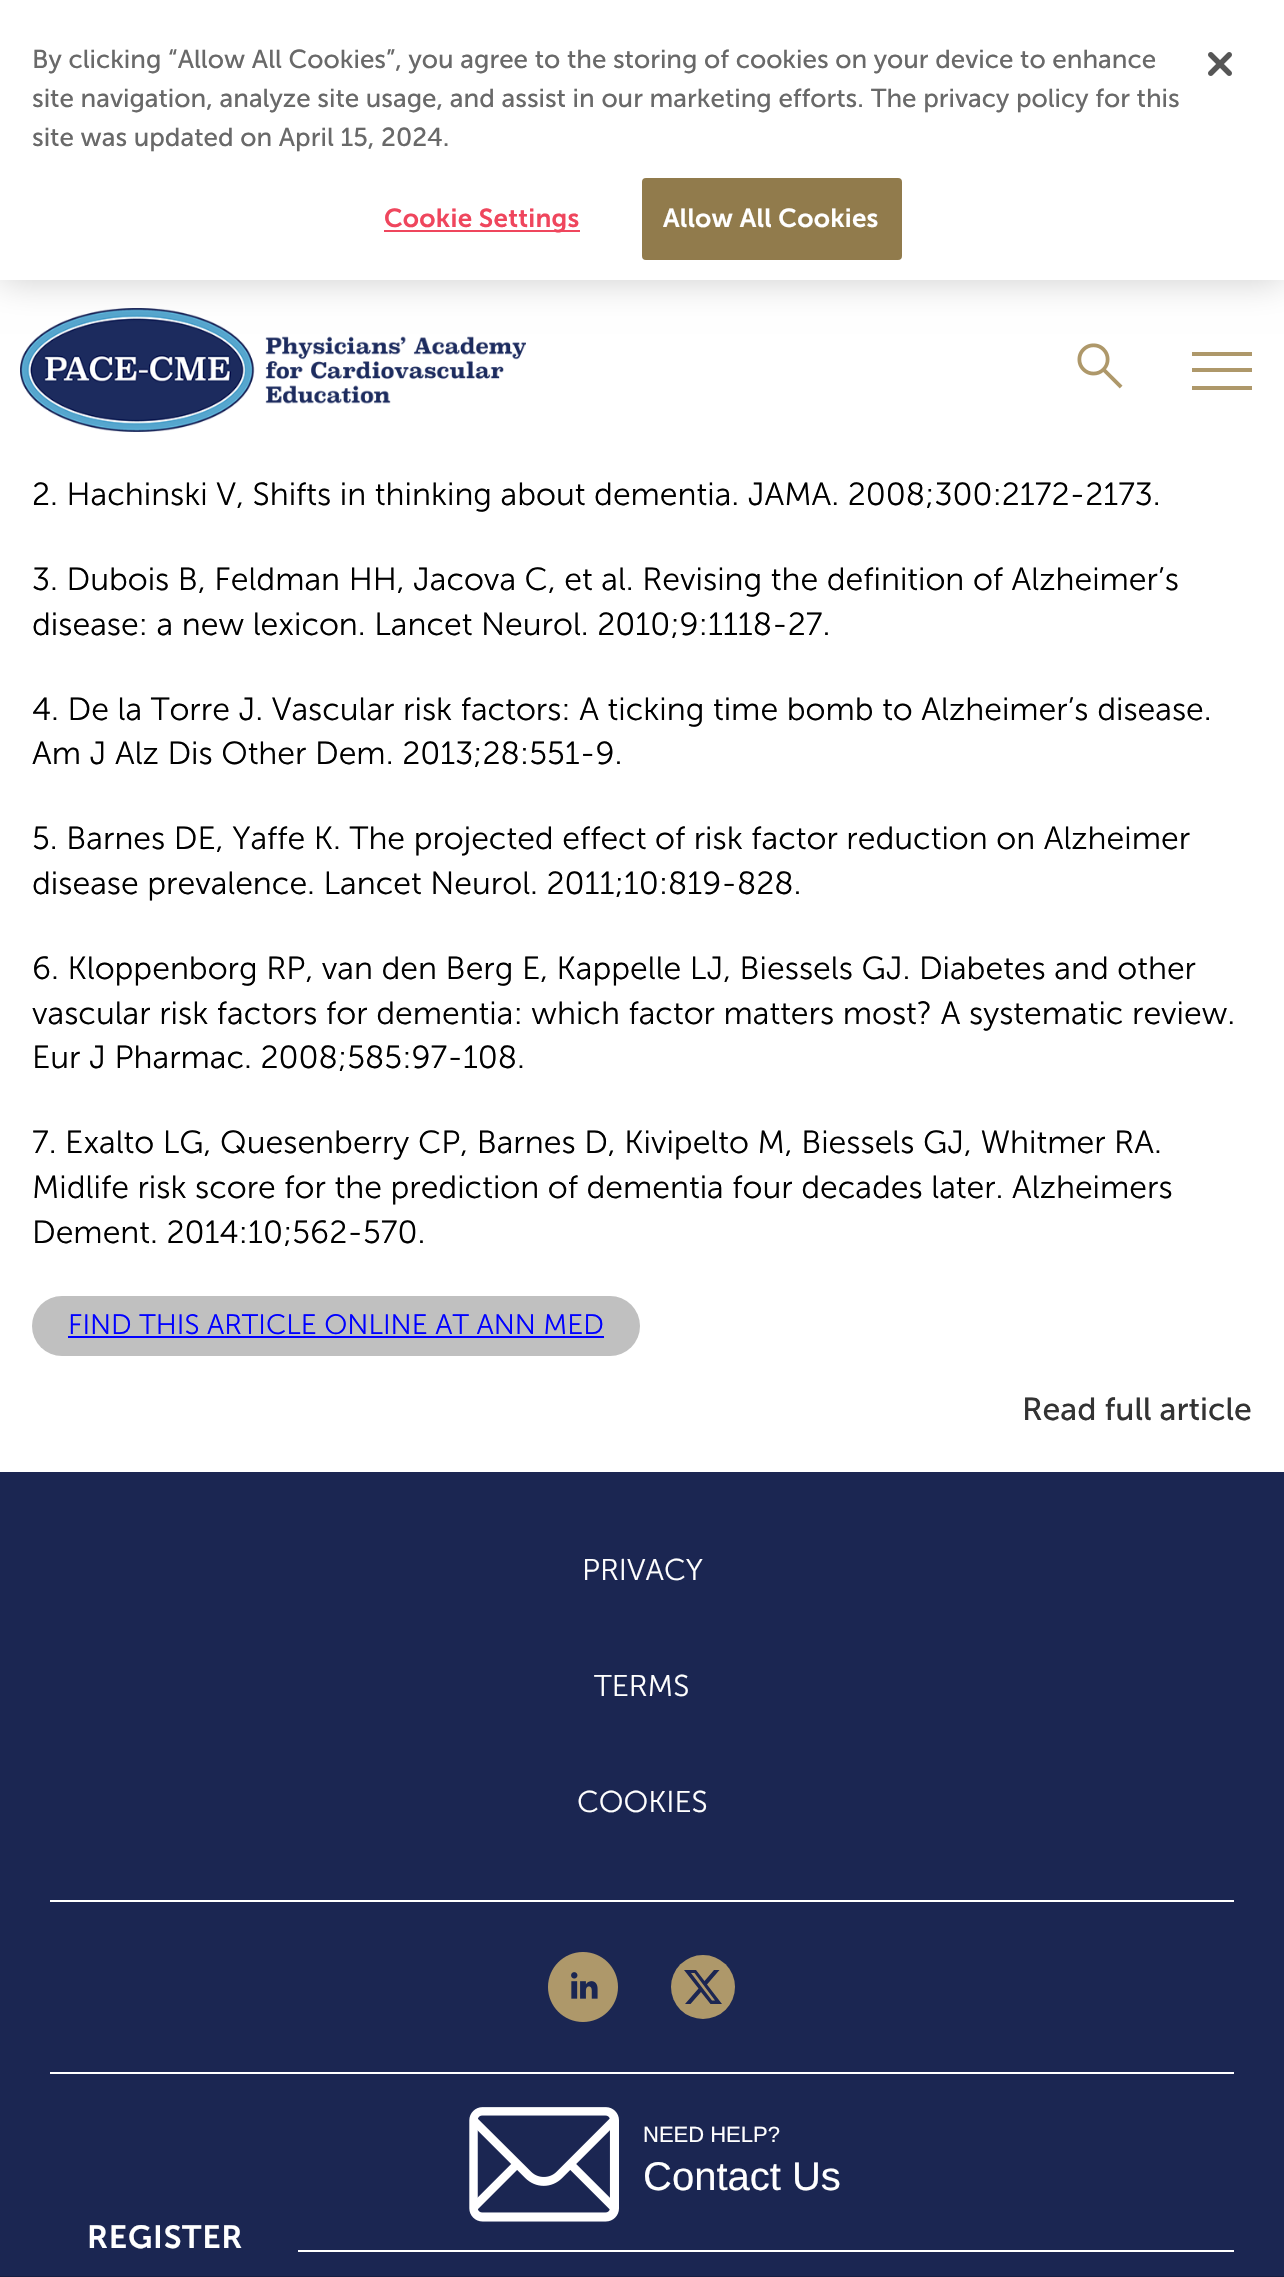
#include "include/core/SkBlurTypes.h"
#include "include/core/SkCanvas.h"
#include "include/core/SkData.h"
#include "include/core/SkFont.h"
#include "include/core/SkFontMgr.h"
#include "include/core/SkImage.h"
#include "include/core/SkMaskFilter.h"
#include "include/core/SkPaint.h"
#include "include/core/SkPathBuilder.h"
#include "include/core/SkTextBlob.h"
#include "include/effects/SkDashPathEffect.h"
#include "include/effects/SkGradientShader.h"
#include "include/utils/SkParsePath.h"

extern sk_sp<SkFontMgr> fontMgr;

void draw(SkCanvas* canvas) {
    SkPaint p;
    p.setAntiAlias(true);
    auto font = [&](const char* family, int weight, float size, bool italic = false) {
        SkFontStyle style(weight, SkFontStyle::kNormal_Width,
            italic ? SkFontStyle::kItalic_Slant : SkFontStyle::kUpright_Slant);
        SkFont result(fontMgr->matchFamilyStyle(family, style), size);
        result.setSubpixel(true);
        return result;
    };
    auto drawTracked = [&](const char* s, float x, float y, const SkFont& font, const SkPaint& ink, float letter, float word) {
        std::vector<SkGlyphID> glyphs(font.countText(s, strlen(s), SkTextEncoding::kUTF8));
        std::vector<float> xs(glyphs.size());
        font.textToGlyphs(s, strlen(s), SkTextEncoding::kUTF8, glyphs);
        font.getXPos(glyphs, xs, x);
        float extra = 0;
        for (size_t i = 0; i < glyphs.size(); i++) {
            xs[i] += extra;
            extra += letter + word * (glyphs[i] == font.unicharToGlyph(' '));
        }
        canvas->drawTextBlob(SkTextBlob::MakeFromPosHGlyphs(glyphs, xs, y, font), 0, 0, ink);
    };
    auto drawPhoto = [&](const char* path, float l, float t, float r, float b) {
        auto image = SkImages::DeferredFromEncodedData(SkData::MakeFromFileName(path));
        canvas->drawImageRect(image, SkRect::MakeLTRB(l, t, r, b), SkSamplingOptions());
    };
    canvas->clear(0xFFFFFFFF);
    drawPhoto("media/2.png", 20, 308, 526, 432);
    p.setColor(0x33000000);
    p.setMaskFilter(SkMaskFilter::MakeBlur(kNormal_SkBlurStyle, 18));
    canvas->drawRect(SkRect::MakeLTRB(0, 0, 1284, 280), p);
    p.setMaskFilter(nullptr);
    p.setColor(0xFFFFFFFF);
    canvas->drawRect(SkRect::MakeLTRB(0, 0, 1284, 280), p);
    auto font1 = font("Museo Sans", 400, 26);
    p.setColor(0xFF696969);
    {
        const struct { const char* s; float x, y; } items[] = {
            {"By clicking “Allow All Cookies”, you agree to the storing of cookies on your device to enhance", 32, 68},
            {"site navigation, analyze site usage, and assist in our marketing efforts.", 32, 107},
            {"The privacy policy for this", 871, 107},
            {"site was updated on April 15, 2024.", 32, 146},
        };
        for (auto [s, x, y] : items) {
            canvas->drawString(s, x, y, font1, p);
        }
    }
    p.setColor(0xFFEF465D);
    canvas->drawRect(SkRect::MakeLTRB(384, 230, 580, 232), p);
    auto font2 = font("Museo Sans", 600, 26);
    drawTracked("Cookie Settings", 384, 227, font2, p, 0.25f, 0);
    p.setColor(0xFF917B4C);
    canvas->drawRoundRect(SkRect::MakeLTRB(643, 179, 901, 259), 3, 3, p);
    p.setStyle(SkPaint::kStroke_Style);
    p.setStrokeWidth(2);
    canvas->drawRoundRect(SkRect::MakeLTRB(643, 179, 901, 259), 3, 3, p);
    p.setStyle(SkPaint::kFill_Style);
    p.setColor(0xFFFFFFFF);
    drawTracked("Allow All Cookies", 663, 227, font2, p, 0.25f, 0);
    drawPhoto("media/1.png", 1208, 52, 1232, 76);
    drawPhoto("media/3.png", 1077, 343, 1123, 389);
    {
        const struct { float l, t, r, b; SkColor color; } items[] = {
            {1192, 352, 1252, 356, 0xFFAE986A},
            {1192, 368, 1252, 372, 0xFFAE986A},
            {1192, 386, 1252, 390, 0xFFAE986A},
        };
        for (auto [l, t, r, b, color] : items) {
            p.setColor(color);
            canvas->drawRect(SkRect::MakeLTRB(l, t, r, b), p);
        }
    }
    auto font3 = font("Museo Sans", 300, 32);
    p.setColor(0xFF000000);
    {
        const struct { const char* s; float x, y; } items[] = {
            {"2. Hachinski V, Shifts in thinking about dementia. JAMA. 2008;300:2172-2173.", 32, 505},
            {"3. Dubois B, Feldman HH, Jacova C, et al. Revising the definition of Alzheimer’s", 32, 590},
            {"disease: a new lexicon. Lancet Neurol. 2010;9:1118-27.", 32, 635},
            {"4. De la Torre J. Vascular risk factors: A ticking time bomb to Alzheimer’s disease.", 32, 720},
            {"Am J Alz Dis Other Dem. 2013;28:551-9.", 32, 764},
            {"5. Barnes DE, Yaffe K. The projected effect of risk factor reduction on Alzheimer", 32, 849},
            {"disease prevalence. Lancet Neurol. 2011;10:819-828.", 32, 894},
            {"6. Kloppenborg RP, van den Berg E, Kappelle LJ, Biessels GJ. Diabetes and other", 32, 979},
            {"vascular risk factors for dementia: which factor matters most? A systematic review.", 32, 1024},
            {"Eur J Pharmac. 2008;585:97-108.", 32, 1068},
            {"7. Exalto LG, Quesenberry CP, Barnes D, Kivipelto M, Biessels GJ, Whitmer RA.", 32, 1153},
            {"Midlife risk score for the prediction of dementia four decades later. Alzheimers", 32, 1198},
            {"Dement. 2014:10;562-570.", 32, 1243},
        };
        for (auto [s, x, y] : items) {
            canvas->drawString(s, x, y, font3, p);
        }
    }
    p.setColor(0xFFC0C0C0);
    canvas->drawRoundRect(SkRect::MakeLTRB(32, 1296, 640, 1356), 30, 30, p);
    auto font4 = font("Museo Sans", 300, 28);
    p.setColor(0xFF0000FF);
    canvas->drawString("FIND THIS ARTICLE ONLINE AT ANN MED", 68, 1334, font4, p);
    canvas->drawRect(SkRect::MakeLTRB(68, 1336, 604, 1338), p);
    auto font5 = font("Museo Sans", 400, 32);
    p.setColor(0xFF333333);
    canvas->drawString("Read full article", 1022, 1420, font5, p);
    p.setColor(0xFF1B2652);
    canvas->drawRect(SkRect::MakeLTRB(0, 1472, 1284, 2276), p);
    auto font6 = font("Museo Sans", 300, 30);
    p.setColor(0xFFFFFFFF);
    {
        const struct { const char* s; float x, y; } items[] = {
            {"PRIVACY", 582, 1580},
            {"TERMS", 594, 1696},
            {"COOKIES", 577, 1812},
        };
        for (auto [s, x, y] : items) {
            canvas->drawString(s, x, y, font6, p);
        }
    }
    canvas->drawRect(SkRect::MakeLTRB(50, 1900, 1234, 1902), p);
    canvas->drawRect(SkRect::MakeLTRB(50, 2072, 1234, 2074), p);
    drawPhoto("media/4.png", 548, 1952, 618, 2022);
    p.setColor(0xFFAE986A);
    canvas->drawCircle(703, 1987, 32, p);
    p.setColor(0xFF1C2652);
    canvas->drawPath(SkPathBuilder().moveTo(714, 1970).lineTo(719.5f, 1970).lineTo(707, 1984.5f).lineTo(722, 2004).lineTo(710.5f, 2004).lineTo(701, 1992).lineTo(690.5f, 2004).lineTo(685, 2004).lineTo(698.5f, 1988.5f).lineTo(684, 1970).lineTo(696, 1970).lineTo(704.5f, 1981).close().moveTo(712, 2000.5f).lineTo(715, 2000.5f).lineTo(694.5f, 1973).lineTo(691, 1973).close().detach(), p);
    p.setColor(0xFFFFFFFF);
    canvas->drawRect(SkRect::MakeLTRB(298, 2250, 1234, 2252), p);
    auto font7 = font("Liberation Sans", 400, 22);
    canvas->drawString("NEED HELP?", 643, 2142, font7, p);
    drawPhoto("media/5.png", 469, 2107, 619, 2222);
    auto font8 = font("Liberation Sans", 400, 40);
    canvas->drawString("Contact Us", 643, 2190, font8, p);
    p.setColor(0xFF161E42);
    canvas->drawRect(SkRect::MakeLTRB(0, 2276, 1284, 2277), p);
    auto font9 = font("Museo Sans", 600, 32);
    p.setColor(0xFFFFFFFF);
    drawTracked("REGISTER", 87, 2248, font9, p, 0.75f, 0);
}
